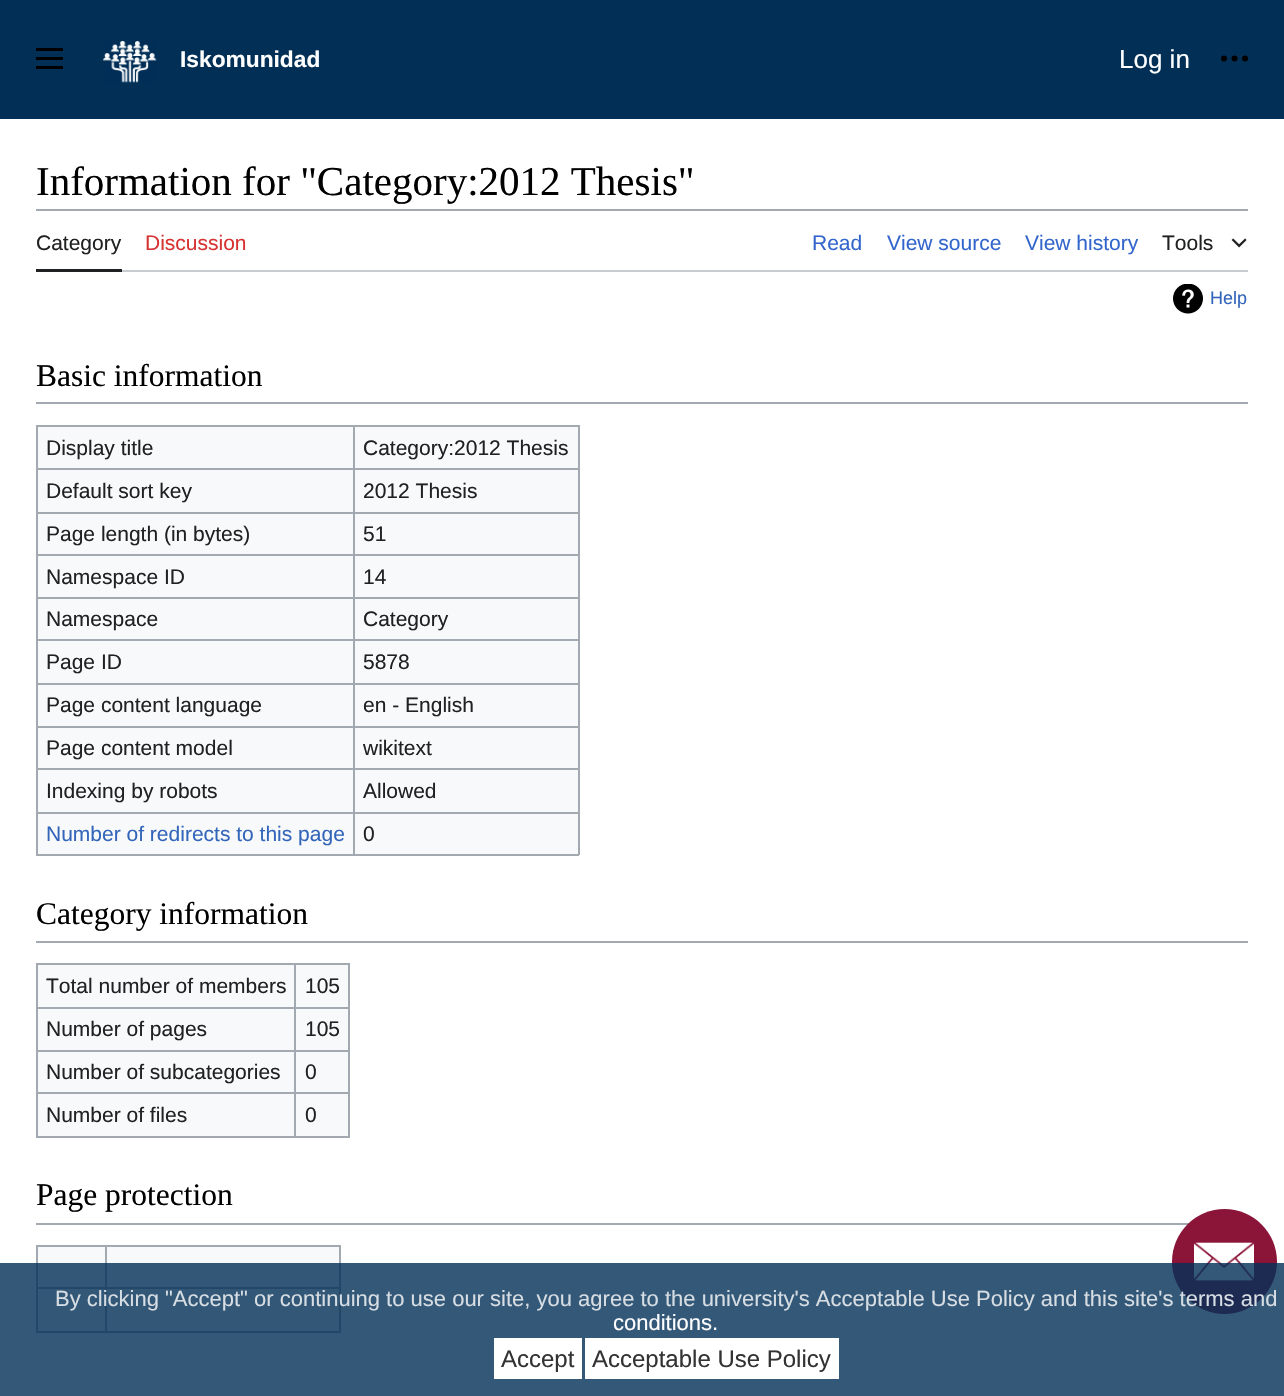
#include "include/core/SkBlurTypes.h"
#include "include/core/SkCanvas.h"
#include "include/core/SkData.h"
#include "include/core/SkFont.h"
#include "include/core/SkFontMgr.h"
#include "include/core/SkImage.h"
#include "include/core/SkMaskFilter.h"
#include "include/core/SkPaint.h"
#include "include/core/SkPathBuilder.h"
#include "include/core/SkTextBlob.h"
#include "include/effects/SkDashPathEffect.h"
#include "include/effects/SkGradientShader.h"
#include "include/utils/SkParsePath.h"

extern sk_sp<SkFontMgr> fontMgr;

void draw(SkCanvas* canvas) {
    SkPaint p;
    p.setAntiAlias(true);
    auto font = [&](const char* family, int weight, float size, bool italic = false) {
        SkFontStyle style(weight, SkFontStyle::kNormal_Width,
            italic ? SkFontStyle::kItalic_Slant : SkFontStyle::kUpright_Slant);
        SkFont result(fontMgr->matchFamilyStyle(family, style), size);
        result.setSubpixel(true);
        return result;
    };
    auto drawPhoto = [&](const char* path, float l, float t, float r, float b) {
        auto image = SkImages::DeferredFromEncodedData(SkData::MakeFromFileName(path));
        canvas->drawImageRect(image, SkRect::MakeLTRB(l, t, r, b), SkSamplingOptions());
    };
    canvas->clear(0xFFFFFFFF);
    p.setColor(0xFF012F56);
    canvas->drawRect(SkRect::MakeLTRB(0, 0, 1284, 119), p);
    drawPhoto("media/1.png", 36, 48, 63, 69);
    drawPhoto("media/2.png", 103, 41, 157, 83);
    auto font1 = font("Liberation Sans", 700, 22.75f);
    p.setColor(0xFFFFFFFF);
    canvas->drawString("Iskomunidad", 180, 67, font1, p);
    auto font2 = font("Liberation Sans", 400, 26);
    canvas->drawString("Log in", 1119, 68, font2, p);
    drawPhoto("media/3.png", 1221, 55, 1248, 62);
    auto font3 = font("Liberation Serif", 400, 41);
    p.setColor(0xFF000000);
    canvas->drawString("Information for \"Category:2012 Thesis\"", 36, 195, font3, p);
    {
        const struct { float l, t, r, b; SkColor color; } items[] = {
            {36, 209, 1248, 211, 0xFFA2A9B1},
            {122, 270, 1248, 272, 0xFFC8CCD1},
            {36, 269, 122, 272, 0xFF202122},
        };
        for (auto [l, t, r, b, color] : items) {
            p.setColor(color);
            canvas->drawRect(SkRect::MakeLTRB(l, t, r, b), p);
        }
    }
    auto font4 = font("Liberation Sans", 400, 21);
    canvas->drawString("Category", 36, 250, font4, p);
    p.setColor(0xFFD73333);
    canvas->drawString("Discussion", 145, 250, font4, p);
    p.setColor(0xFF3366CC);
    {
        const struct { const char* s; float x, y; } items[] = {
            {"Read", 812, 250},
            {"View source", 887, 250},
            {"View history", 1025, 250},
        };
        for (auto [s, x, y] : items) {
            canvas->drawString(s, x, y, font4, p);
        }
    }
    p.setColor(0xFF202122);
    canvas->drawString("Tools", 1162, 250, font4, p);
    drawPhoto("media/4.png", 1231, 238, 1247, 248);
    drawPhoto("media/5.png", 1173, 284, 1203, 314);
    auto font5 = font("Liberation Sans", 400, 18);
    p.setColor(0xFF3366BB);
    canvas->drawString("Help", 1210, 304, font5, p);
    p.setColor(0xFFA2A9B1);
    canvas->drawRect(SkRect::MakeLTRB(36, 402, 1248, 404), p);
    auto font6 = font("Liberation Serif", 400, 31.5f);
    p.setColor(0xFF000000);
    canvas->drawString("Basic information", 36, 386, font6, p);
    {
        const struct { float l, t, r, b; SkColor color; } items[] = {
            {38, 427, 578, 854, 0xFFF8F9FA},
            {36, 425, 579, 427, 0xFFA2A9B1},
            {578, 425, 580, 855, 0xFFA2A9B1},
            {36, 854, 579, 856, 0xFFA2A9B1},
            {36, 425, 38, 855, 0xFFA2A9B1},
        };
        for (auto [l, t, r, b, color] : items) {
            p.setColor(color);
            canvas->drawRect(SkRect::MakeLTRB(l, t, r, b), p);
        }
    }
    p.setColor(0xFF202122);
    canvas->drawString("Display title", 46, 455, font4, p);
    {
        const struct { float l, t, r, b; SkColor color; } items[] = {
            {353, 468, 579, 470, 0xFFA2A9B1},
            {353, 512, 579, 514, 0xFFA2A9B1},
            {353, 554, 579, 556, 0xFFA2A9B1},
            {353, 597, 579, 599, 0xFFA2A9B1},
            {353, 639, 579, 641, 0xFFA2A9B1},
            {353, 683, 579, 685, 0xFFA2A9B1},
            {353, 726, 579, 728, 0xFFA2A9B1},
            {353, 768, 579, 770, 0xFFA2A9B1},
            {353, 812, 579, 814, 0xFFA2A9B1},
            {353, 812, 355, 855, 0xFFA2A9B1},
            {36, 812, 354, 814, 0xFFA2A9B1},
            {353, 768, 355, 813, 0xFFA2A9B1},
            {36, 768, 354, 770, 0xFFA2A9B1},
            {353, 726, 355, 770, 0xFFA2A9B1},
            {36, 726, 354, 728, 0xFFA2A9B1},
            {353, 683, 355, 728, 0xFFA2A9B1},
            {36, 683, 354, 685, 0xFFA2A9B1},
            {353, 639, 355, 684, 0xFFA2A9B1},
            {36, 639, 354, 641, 0xFFA2A9B1},
            {353, 597, 355, 641, 0xFFA2A9B1},
            {36, 597, 354, 599, 0xFFA2A9B1},
            {353, 554, 355, 599, 0xFFA2A9B1},
            {36, 554, 354, 556, 0xFFA2A9B1},
            {353, 512, 355, 555, 0xFFA2A9B1},
            {36, 512, 354, 514, 0xFFA2A9B1},
            {353, 468, 355, 513, 0xFFA2A9B1},
            {36, 468, 354, 470, 0xFFA2A9B1},
            {353, 425, 355, 470, 0xFFA2A9B1},
        };
        for (auto [l, t, r, b, color] : items) {
            p.setColor(color);
            canvas->drawRect(SkRect::MakeLTRB(l, t, r, b), p);
        }
    }
    p.setColor(0xFF202122);
    {
        const struct { const char* s; float x, y; } items[] = {
            {"Category:2012 Thesis", 363, 455},
            {"Default sort key", 46, 498},
            {"2012 Thesis", 363, 498},
            {"Page length (in bytes)", 46, 541},
            {"51", 363, 541},
            {"Namespace ID", 46, 584},
            {"14", 363, 584},
            {"Namespace", 46, 626},
            {"Category", 363, 626},
            {"Page ID", 46, 669},
            {"5878", 363, 669},
            {"Page content language", 46, 712},
            {"en - English", 363, 712},
            {"Page content model", 46, 755},
            {"wikitext", 363, 755},
            {"Indexing by robots", 46, 798},
            {"Allowed", 363, 798},
        };
        for (auto [s, x, y] : items) {
            canvas->drawString(s, x, y, font4, p);
        }
    }
    p.setColor(0xFF3366BB);
    canvas->drawString("Number of redirects to this page", 46, 841, font4, p);
    p.setColor(0xFF202122);
    canvas->drawString("0", 363, 841, font4, p);
    p.setColor(0xFFA2A9B1);
    canvas->drawRect(SkRect::MakeLTRB(36, 941, 1248, 943), p);
    p.setColor(0xFF000000);
    canvas->drawString("Category information", 36, 924, font6, p);
    {
        const struct { float l, t, r, b; SkColor color; } items[] = {
            {38, 965, 348, 1136, 0xFFF8F9FA},
            {36, 963, 350, 965, 0xFFA2A9B1},
            {348, 963, 350, 1137, 0xFFA2A9B1},
            {36, 1136, 350, 1138, 0xFFA2A9B1},
            {36, 963, 38, 1137, 0xFFA2A9B1},
        };
        for (auto [l, t, r, b, color] : items) {
            p.setColor(color);
            canvas->drawRect(SkRect::MakeLTRB(l, t, r, b), p);
        }
    }
    p.setColor(0xFF202122);
    canvas->drawString("Total number of members", 46, 993, font4, p);
    {
        const struct { float l, t, r, b; SkColor color; } items[] = {
            {294, 1007, 350, 1009, 0xFFA2A9B1},
            {294, 1050, 350, 1052, 0xFFA2A9B1},
            {294, 1092, 350, 1094, 0xFFA2A9B1},
            {294, 1092, 296, 1137, 0xFFA2A9B1},
            {36, 1092, 296, 1094, 0xFFA2A9B1},
            {294, 1050, 296, 1094, 0xFFA2A9B1},
            {36, 1050, 296, 1052, 0xFFA2A9B1},
            {294, 1007, 296, 1052, 0xFFA2A9B1},
            {36, 1007, 296, 1009, 0xFFA2A9B1},
            {294, 963, 296, 1008, 0xFFA2A9B1},
        };
        for (auto [l, t, r, b, color] : items) {
            p.setColor(color);
            canvas->drawRect(SkRect::MakeLTRB(l, t, r, b), p);
        }
    }
    p.setColor(0xFF202122);
    {
        const struct { const char* s; float x, y; } items[] = {
            {"105", 305, 993},
            {"Number of pages", 46, 1036},
            {"105", 305, 1036},
            {"Number of subcategories", 46, 1079},
            {"0", 305, 1079},
            {"Number of files", 46, 1122},
            {"0", 305, 1122},
        };
        for (auto [s, x, y] : items) {
            canvas->drawString(s, x, y, font4, p);
        }
    }
    p.setColor(0xFFA2A9B1);
    canvas->drawRect(SkRect::MakeLTRB(36, 1223, 1189, 1225), p);
    p.setColor(0xFF000000);
    canvas->drawString("Page protection", 36, 1205, font6, p);
    {
        const struct { float l, t, r, b; SkColor color; } items[] = {
            {38, 1247, 339, 1331, 0xFFF8F9FA},
            {36, 1245, 341, 1247, 0xFFA2A9B1},
            {339, 1245, 341, 1332, 0xFFA2A9B1},
            {36, 1331, 341, 1333, 0xFFA2A9B1},
            {36, 1245, 38, 1332, 0xFFA2A9B1},
            {105, 1287, 341, 1289, 0xFFA2A9B1},
            {105, 1287, 107, 1332, 0xFFA2A9B1},
            {36, 1287, 107, 1289, 0xFFA2A9B1},
            {105, 1245, 107, 1289, 0xFFA2A9B1},
        };
        for (auto [l, t, r, b, color] : items) {
            p.setColor(color);
            canvas->drawRect(SkRect::MakeLTRB(l, t, r, b), p);
        }
    }
    p.setColor(0xFF8A1538);
    canvas->drawCircle(1224.5f, 1261.5f, 52.5f, p);
    drawPhoto("media/6.png", 1194, 1242, 1254, 1282);
    p.setColor(0xCC012E56);
    canvas->drawRect(SkRect::MakeLTRB(0, 1263, 1284, 1396), p);
    auto font7 = font("Liberation Sans", 400, 22);
    p.setColor(0xFFD6DDE3);
    canvas->drawString("By clicking \"Accept\" or continuing to use our site, you agree to the university's Acceptable Use Policy and this site's terms and", 55, 1306, font7, p);
    p.setColor(0xFFFFFFFF);
    canvas->drawString("conditions.", 613, 1330, font7, p);
    canvas->drawRect(SkRect::MakeLTRB(494, 1338, 582, 1379), p);
    auto font8 = font("Liberation Sans", 400, 24);
    p.setColor(0xFF333333);
    canvas->drawString("Accept", 501, 1367, font8, p);
    p.setColor(0xFFFFFFFF);
    canvas->drawRect(SkRect::MakeLTRB(585, 1338, 839, 1379), p);
    p.setColor(0xFF333333);
    canvas->drawString("Acceptable Use Policy", 592, 1367, font8, p);
}
